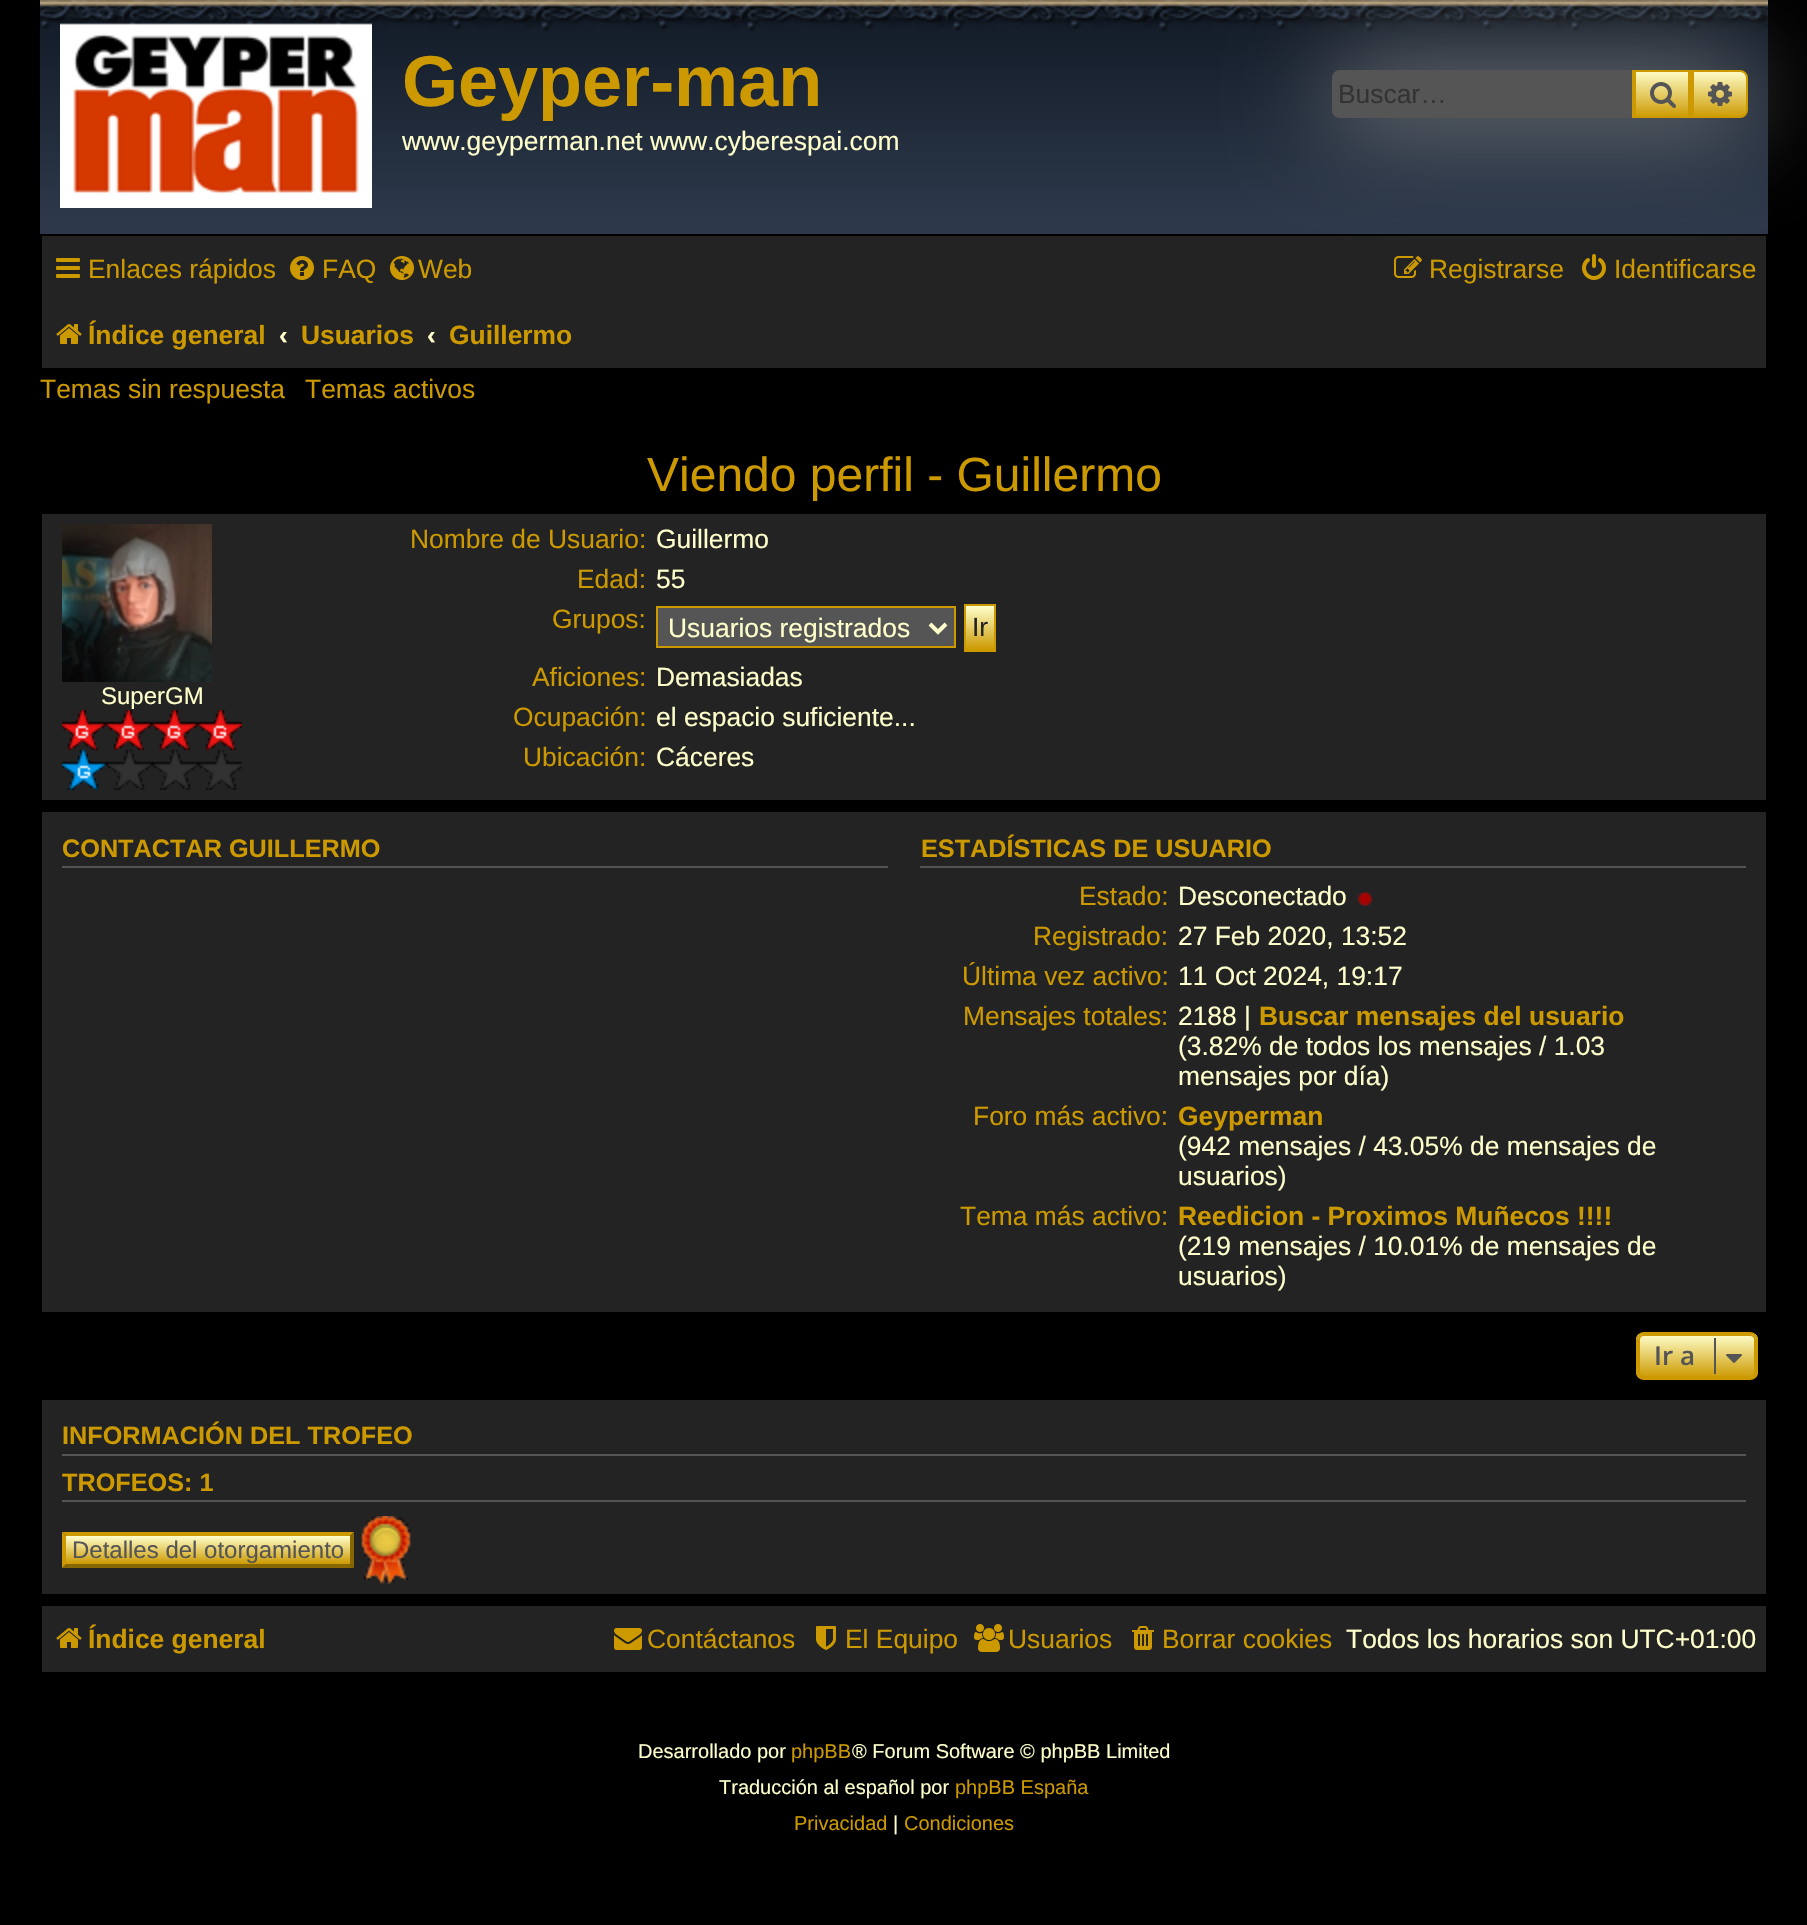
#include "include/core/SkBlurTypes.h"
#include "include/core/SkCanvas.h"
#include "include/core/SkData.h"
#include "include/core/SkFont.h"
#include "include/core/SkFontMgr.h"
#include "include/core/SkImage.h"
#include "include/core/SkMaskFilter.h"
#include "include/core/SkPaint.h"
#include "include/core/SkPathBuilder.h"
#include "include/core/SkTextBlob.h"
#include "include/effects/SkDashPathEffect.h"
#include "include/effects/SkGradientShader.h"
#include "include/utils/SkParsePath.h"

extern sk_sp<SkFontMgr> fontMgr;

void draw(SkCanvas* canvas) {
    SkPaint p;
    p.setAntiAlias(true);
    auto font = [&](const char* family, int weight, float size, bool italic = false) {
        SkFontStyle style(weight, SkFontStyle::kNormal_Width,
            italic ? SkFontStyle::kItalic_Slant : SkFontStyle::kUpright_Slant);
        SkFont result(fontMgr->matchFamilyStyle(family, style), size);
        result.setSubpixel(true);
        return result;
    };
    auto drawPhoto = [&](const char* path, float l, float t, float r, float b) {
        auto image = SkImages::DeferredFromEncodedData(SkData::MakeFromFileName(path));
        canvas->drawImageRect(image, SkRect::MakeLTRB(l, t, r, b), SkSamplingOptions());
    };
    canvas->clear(0xFF000000);
    drawPhoto("media/1.png", 40, 0, 1768, 234);
    drawPhoto("media/2.png", 60, 23, 372, 208);
    auto font1 = font("Liberation Sans", 700, 72);
    p.setColor(0xFFCC9900);
    canvas->drawString("Geyper-man", 402, 106, font1, p);
    auto font2 = font("Liberation Sans", 400, 26.4f);
    p.setColor(0xFFFFFFCC);
    canvas->drawString("www.geyperman.net www.cyberespai.com", 402, 150, font2, p);
    p.setColor(0xFF232323);
    canvas->drawRect(SkRect::MakeLTRB(42, 236, 1766, 368), p);
    p.setColor(0xFF999999);
    p.setMaskFilter(SkMaskFilter::MakeBlur(kNormal_SkBlurStyle, 50));
    canvas->drawRoundRect(SkRect::MakeLTRB(1332, 70, 1748, 118), 8, 8, p);
    p.setMaskFilter(nullptr);
    p.setColor(0xFF555555);
    canvas->drawPath(SkPathBuilder().moveTo(1340, 70).lineTo(1632, 70).lineTo(1632, 118).lineTo(1340, 118).cubicTo(1335.5f, 118, 1332, 114.5f, 1332, 110).lineTo(1332, 78).cubicTo(1332, 73.5f, 1335.5f, 70, 1340, 70).close().detach(), p);
    p.setColor(0xFF333333);
    canvas->drawString("Buscar…", 1338, 103, font2, p);
    {
        const SkColor colors[] = {0xFFFFFFCC, 0xFFCC9900};
        const float stops[] = {0, 1};
        const SkPoint ends[] = {{1662, 70}, {1662, 118}};
        p.setShader(SkGradientShader::MakeLinear(ends, colors, stops, 2, SkTileMode::kClamp));
        p.setAlpha(255);
    }
    canvas->drawRect(SkRect::MakeLTRB(1636, 72, 1688, 116), p);
    p.setStyle(SkPaint::kStroke_Style);
    p.setStrokeWidth(2);
    p.setShader(nullptr);
    p.setColor(0xFFCC9900);
    canvas->drawRect(SkRect::MakeLTRB(1635, 71, 1689, 117), p);
    p.setStyle(SkPaint::kFill_Style);
    canvas->drawRect(SkRect::MakeLTRB(1690, 70, 1692, 118), p);
    canvas->drawRect(SkRect::MakeLTRB(1632, 70, 1634, 118), p);
    drawPhoto("media/3.png", 1650, 82, 1676, 108);
    {
        const SkColor colors[] = {0xFFFFFFCC, 0xFFCC9900};
        const float stops[] = {0, 1};
        const SkPoint ends[] = {{1720, 70}, {1720, 118}};
        p.setShader(SkGradientShader::MakeLinear(ends, colors, stops, 2, SkTileMode::kClamp));
        p.setAlpha(255);
    }
    canvas->drawPath(SkPathBuilder().moveTo(1693, 71).lineTo(1740, 71).cubicTo(1744, 71, 1747, 74, 1747, 78).lineTo(1747, 110).cubicTo(1747, 114, 1744, 117, 1740, 117).lineTo(1693, 117).close().detach(), p);
    p.setStyle(SkPaint::kStroke_Style);
    p.setShader(nullptr);
    p.setColor(0xFFCC9900);
    canvas->drawPath(SkPathBuilder().moveTo(1693, 71).lineTo(1740, 71).cubicTo(1744, 71, 1747, 74, 1747, 78).lineTo(1747, 110).cubicTo(1747, 114, 1744, 117, 1740, 117).lineTo(1693, 117).close().detach(), p);
    drawPhoto("media/4.png", 1708, 82, 1732, 106);
    drawPhoto("media/5.png", 56, 258, 80, 278);
    p.setStyle(SkPaint::kFill_Style);
    canvas->drawString("Enlaces rápidos", 88, 278, font2, p);
    drawPhoto("media/6.png", 290, 256, 314, 280);
    canvas->drawString("FAQ", 322, 278, font2, p);
    drawPhoto("media/7.png", 390, 256, 414, 280);
    canvas->drawString("Web", 418, 278, font2, p);
    drawPhoto("media/8.png", 1394, 256, 1422, 278);
    canvas->drawString("Registrarse", 1429, 278, font2, p);
    drawPhoto("media/9.png", 1582, 254, 1606, 280);
    canvas->drawString("Identificarse", 1614, 278, font2, p);
    drawPhoto("media/10.png", 56, 324, 82, 344);
    auto font3 = font("Liberation Sans", 700, 26.4f);
    canvas->drawString("Índice general", 88, 344, font3, p);
    p.setColor(0xFFFFFFCC);
    canvas->drawString("‹", 279, 344, font3, p);
    p.setColor(0xFFCC9900);
    canvas->drawString("Usuarios", 301, 344, font3, p);
    p.setColor(0xFFFFFFCC);
    canvas->drawString("‹", 427, 344, font3, p);
    p.setColor(0xFFCC9900);
    canvas->drawString("Guillermo", 449, 344, font3, p);
    canvas->drawString("Temas sin respuesta", 40, 398, font2, p);
    canvas->drawString("Temas activos", 305, 398, font2, p);
    auto font4 = font("Liberation Sans", 400, 48);
    canvas->drawString("Viendo perfil - Guillermo", 647, 491, font4, p);
    p.setColor(0xFF232323);
    canvas->drawRect(SkRect::MakeLTRB(42, 514, 1766, 800), p);
    drawPhoto("media/11.png", 62, 524, 212, 682);
    auto font5 = font("Liberation Sans", 400, 24);
    p.setColor(0xFFFFFFCC);
    canvas->drawString("SuperGM", 101, 704, font5, p);
    drawPhoto("media/12.png", 62, 710, 242, 790);
    p.setColor(0xFFCC9900);
    canvas->drawString("Nombre de Usuario:", 410, 548, font2, p);
    p.setColor(0xFFFFFFCC);
    canvas->drawString("Guillermo", 656, 548, font2, p);
    p.setColor(0xFFCC9900);
    canvas->drawString("Edad:", 577, 588, font2, p);
    p.setColor(0xFFFFFFCC);
    canvas->drawString("55", 656, 588, font2, p);
    p.setColor(0xFFCC9900);
    canvas->drawString("Grupos:", 552, 628, font2, p);
    p.setColor(0xFF555555);
    canvas->drawRect(SkRect::MakeLTRB(657, 607, 955, 647), p);
    p.setStyle(SkPaint::kStroke_Style);
    p.setColor(0xFFCC9900);
    canvas->drawRect(SkRect::MakeLTRB(657, 607, 955, 647), p);
    p.setStrokeWidth(4);
    p.setColor(0xFFFFFFCC);
    canvas->drawPath(SkPathBuilder().moveTo(930, 624).lineTo(938, 632).lineTo(946, 624).detach(), p);
    p.setStyle(SkPaint::kFill_Style);
    canvas->drawString("Usuarios registrados", 668, 637, font2, p);
    {
        const SkColor colors[] = {0xFFFFFFCC, 0xFFCC9900};
        const float stops[] = {0, 1};
        const SkPoint ends[] = {{980, 606}, {980, 650}};
        p.setShader(SkGradientShader::MakeLinear(ends, colors, stops, 2, SkTileMode::kClamp));
        p.setAlpha(255);
    }
    canvas->drawRect(SkRect::MakeLTRB(966, 606, 994, 650), p);
    p.setStyle(SkPaint::kStroke_Style);
    p.setStrokeWidth(2);
    p.setShader(nullptr);
    p.setColor(0xFFCC9900);
    canvas->drawRect(SkRect::MakeLTRB(965, 605, 995, 651), p);
    p.setStyle(SkPaint::kFill_Style);
    p.setColor(0xFF232323);
    canvas->drawString("Ir", 972, 636, font2, p);
    p.setColor(0xFFCC9900);
    canvas->drawString("Aficiones:", 532, 686, font2, p);
    p.setColor(0xFFFFFFCC);
    canvas->drawString("Demasiadas", 656, 686, font2, p);
    p.setColor(0xFFCC9900);
    canvas->drawString("Ocupación:", 513, 726, font2, p);
    p.setColor(0xFFFFFFCC);
    canvas->drawString("el espacio suficiente...", 656, 726, font2, p);
    p.setColor(0xFFCC9900);
    canvas->drawString("Ubicación:", 523, 766, font2, p);
    p.setColor(0xFFFFFFCC);
    canvas->drawString("Cáceres", 656, 766, font2, p);
    p.setColor(0xFF232323);
    canvas->drawRect(SkRect::MakeLTRB(42, 812, 1766, 1312), p);
    p.setColor(0xFF555555);
    canvas->drawRect(SkRect::MakeLTRB(62, 866, 888, 868), p);
    auto font6 = font("Liberation Sans", 700, 25.25f);
    p.setColor(0xFFCC9900);
    canvas->drawString("CONTACTAR GUILLERMO", 62, 857, font6, p);
    p.setColor(0xFF555555);
    canvas->drawRect(SkRect::MakeLTRB(920, 866, 1746, 868), p);
    p.setColor(0xFFCC9900);
    canvas->drawString("ESTADÍSTICAS DE USUARIO", 921, 857, font6, p);
    canvas->drawString("Estado:", 1079, 905, font2, p);
    p.setColor(0xFFFFFFCC);
    canvas->drawString("Desconectado", 1178, 905, font2, p);
    p.setColor(0xFFAA0000);
    canvas->drawCircle(1365, 899, 6, p);
    p.setStyle(SkPaint::kStroke_Style);
    p.setColor(0xFF7C1111);
    canvas->drawCircle(1365, 899, 6, p);
    p.setStyle(SkPaint::kFill_Style);
    p.setColor(0xFFCC9900);
    canvas->drawString("Registrado:", 1033, 945, font2, p);
    p.setColor(0xFFFFFFCC);
    canvas->drawString("27 Feb 2020, 13:52", 1178, 945, font2, p);
    p.setColor(0xFFCC9900);
    canvas->drawString("Última vez activo:", 962, 985, font2, p);
    p.setColor(0xFFFFFFCC);
    canvas->drawString("11 Oct 2024, 19:17", 1178, 985, font2, p);
    p.setColor(0xFFCC9900);
    canvas->drawString("Mensajes totales:", 963, 1025, font2, p);
    p.setColor(0xFFFFFFCC);
    canvas->drawString("2188 |", 1178, 1025, font2, p);
    p.setColor(0xFFCC9900);
    canvas->drawString("Buscar mensajes del usuario", 1259, 1025, font3, p);
    p.setColor(0xFFFFFFCC);
    canvas->drawString("(3.82% de todos los mensajes / 1.03", 1178, 1055, font2, p);
    canvas->drawString("mensajes por día)", 1178, 1085, font2, p);
    p.setColor(0xFFCC9900);
    canvas->drawString("Foro más activo:", 973, 1125, font2, p);
    canvas->drawString("Geyperman", 1178, 1125, font3, p);
    p.setColor(0xFFFFFFCC);
    canvas->drawString("(942 mensajes / 43.05% de mensajes de", 1178, 1155, font2, p);
    canvas->drawString("usuarios)", 1178, 1185, font2, p);
    p.setColor(0xFFCC9900);
    canvas->drawString("Tema más activo:", 960, 1225, font2, p);
    canvas->drawString("Reedicion - Proximos Muñecos !!!!", 1178, 1225, font3, p);
    p.setColor(0xFFFFFFCC);
    canvas->drawString("(219 mensajes / 10.01% de mensajes de", 1178, 1255, font2, p);
    canvas->drawString("usuarios)", 1178, 1285, font2, p);
    canvas->save();
    canvas->clipPath(SkPathBuilder().moveTo(1644, 1332).lineTo(1750, 1332).cubicTo(1754.5f, 1332, 1758, 1335.5f, 1758, 1340).lineTo(1758, 1372).cubicTo(1758, 1376.5f, 1754.5f, 1380, 1750, 1380).lineTo(1644, 1380).cubicTo(1639.5f, 1380, 1636, 1376.5f, 1636, 1372).lineTo(1636, 1340).cubicTo(1636, 1335.5f, 1639.5f, 1332, 1644, 1332).close().detach(), true);
    {
        const SkColor colors[] = {0xFFFFFFCC, 0xFFCC9900};
        const float stops[] = {0, 1};
        const SkPoint ends[] = {{1697, 1334}, {1697, 1378}};
        p.setShader(SkGradientShader::MakeLinear(ends, colors, stops, 2, SkTileMode::kClamp));
        p.setAlpha(255);
    }
    canvas->drawRect(SkRect::MakeLTRB(1636, 1334, 1758, 1378), p);
    canvas->restore();
    p.setStyle(SkPaint::kStroke_Style);
    p.setShader(nullptr);
    p.setColor(0xFFCC9900);
    canvas->drawRoundRect(SkRect::MakeLTRB(1639, 1335, 1755, 1377), 5, 5, p);
    canvas->drawRoundRect(SkRect::MakeLTRB(1637, 1333, 1757, 1379), 7, 7, p);
    auto font7 = font("Open Sans", 600, 26);
    p.setStyle(SkPaint::kFill_Style);
    p.setColor(0xFF555555);
    canvas->drawString("Ir a", 1654, 1365, font7, p);
    canvas->drawRect(SkRect::MakeLTRB(1714, 1338, 1716, 1374), p);
    drawPhoto("media/13.png", 1726, 1354, 1742, 1363);
    p.setColor(0xFF232323);
    canvas->drawRect(SkRect::MakeLTRB(42, 1400, 1766, 1594), p);
    p.setColor(0xFF555555);
    canvas->drawRect(SkRect::MakeLTRB(62, 1454, 1746, 1456), p);
    p.setColor(0xFFCC9900);
    canvas->drawString("INFORMACIÓN DEL TROFEO", 62, 1444, font6, p);
    p.setColor(0xFF555555);
    canvas->drawRect(SkRect::MakeLTRB(62, 1500, 1746, 1502), p);
    p.setColor(0xFFCC9900);
    canvas->drawString("TROFEOS: 1", 62, 1491, font6, p);
    {
        const SkColor colors[] = {0xFFFFFFCC, 0xFFCC9900};
        const float stops[] = {0, 1};
        const SkPoint ends[] = {{208, 1536}, {208, 1564}};
        p.setShader(SkGradientShader::MakeLinear(ends, colors, stops, 2, SkTileMode::kClamp));
        p.setAlpha(255);
    }
    canvas->drawRect(SkRect::MakeLTRB(66, 1536, 350, 1564), p);
    p.setShader(nullptr);
    p.setColor(0xFFCC9900);
    canvas->drawPath(SkPathBuilder().moveTo(62, 1532).lineTo(354, 1532).lineTo(350, 1536).lineTo(66, 1536).close().detach(), p);
    p.setColor(0xFF886600);
    canvas->drawPath(SkPathBuilder().moveTo(354, 1532).lineTo(354, 1568).lineTo(350, 1564).lineTo(350, 1536).close().detach(), p);
    canvas->drawPath(SkPathBuilder().moveTo(354, 1568).lineTo(62, 1568).lineTo(66, 1564).lineTo(350, 1564).close().detach(), p);
    p.setColor(0xFFCC9900);
    canvas->drawPath(SkPathBuilder().moveTo(62, 1568).lineTo(62, 1532).lineTo(66, 1536).lineTo(66, 1564).close().detach(), p);
    p.setColor(0xFF555555);
    canvas->drawString("Detalles del otorgamiento", 72, 1558, font5, p);
    drawPhoto("media/14.png", 361, 1516, 411, 1584);
    p.setColor(0xFF232323);
    canvas->drawRect(SkRect::MakeLTRB(42, 1606, 1766, 1672), p);
    drawPhoto("media/10.png", 56, 1628, 82, 1648);
    p.setColor(0xFFCC9900);
    canvas->drawString("Índice general", 88, 1648, font3, p);
    drawPhoto("media/15.png", 614, 1628, 642, 1650);
    canvas->drawString("Contáctanos", 647, 1648, font2, p);
    drawPhoto("media/16.png", 816, 1626, 836, 1650);
    canvas->drawString("El Equipo", 845, 1648, font2, p);
    drawPhoto("media/17.png", 974, 1624, 1004, 1652);
    canvas->drawString("Usuarios", 1008, 1648, font2, p);
    drawPhoto("media/18.png", 1132, 1626, 1154, 1650);
    canvas->drawString("Borrar cookies", 1162, 1648, font2, p);
    p.setColor(0xFFFFFFCC);
    canvas->drawString("Todos los horarios son UTC+01:00", 1346, 1648, font2, p);
    auto font8 = font("Liberation Sans", 400, 20);
    canvas->drawString("Desarrollado por", 638, 1758, font8, p);
    p.setColor(0xFFCC9900);
    canvas->drawString("phpBB", 791, 1758, font8, p);
    p.setColor(0xFFFFFFCC);
    canvas->drawString("® Forum Software © phpBB Limited", 852, 1758, font8, p);
    canvas->drawString("Traducción al español por", 719, 1794, font8, p);
    p.setColor(0xFFCC9900);
    canvas->drawString("phpBB España", 955, 1794, font8, p);
    canvas->drawString("Privacidad", 794, 1830, font8, p);
    p.setColor(0xFFFFFFCC);
    canvas->drawString("|", 893, 1830, font8, p);
    p.setColor(0xFFCC9900);
    canvas->drawString("Condiciones", 904, 1830, font8, p);
}
